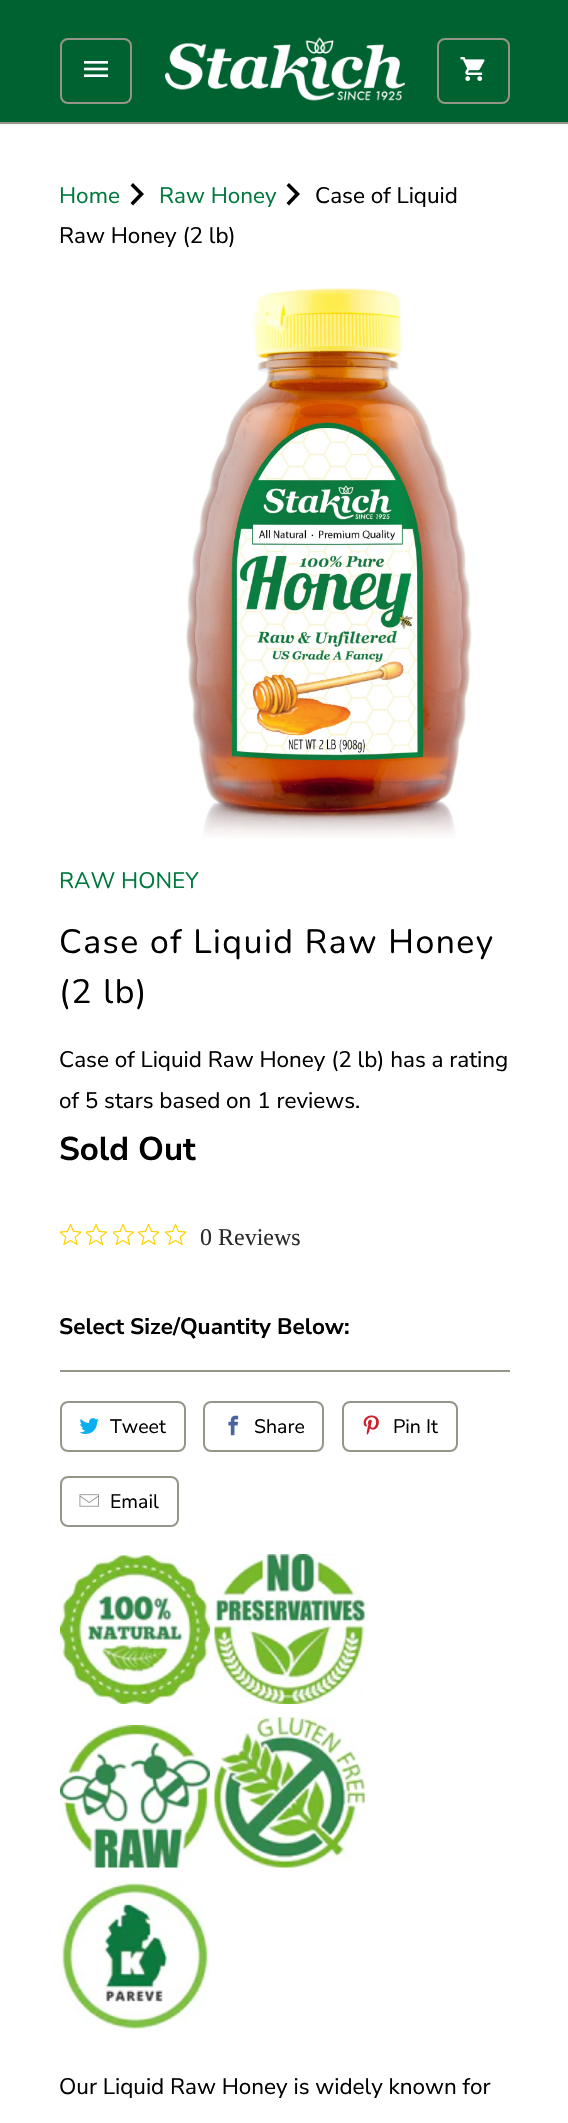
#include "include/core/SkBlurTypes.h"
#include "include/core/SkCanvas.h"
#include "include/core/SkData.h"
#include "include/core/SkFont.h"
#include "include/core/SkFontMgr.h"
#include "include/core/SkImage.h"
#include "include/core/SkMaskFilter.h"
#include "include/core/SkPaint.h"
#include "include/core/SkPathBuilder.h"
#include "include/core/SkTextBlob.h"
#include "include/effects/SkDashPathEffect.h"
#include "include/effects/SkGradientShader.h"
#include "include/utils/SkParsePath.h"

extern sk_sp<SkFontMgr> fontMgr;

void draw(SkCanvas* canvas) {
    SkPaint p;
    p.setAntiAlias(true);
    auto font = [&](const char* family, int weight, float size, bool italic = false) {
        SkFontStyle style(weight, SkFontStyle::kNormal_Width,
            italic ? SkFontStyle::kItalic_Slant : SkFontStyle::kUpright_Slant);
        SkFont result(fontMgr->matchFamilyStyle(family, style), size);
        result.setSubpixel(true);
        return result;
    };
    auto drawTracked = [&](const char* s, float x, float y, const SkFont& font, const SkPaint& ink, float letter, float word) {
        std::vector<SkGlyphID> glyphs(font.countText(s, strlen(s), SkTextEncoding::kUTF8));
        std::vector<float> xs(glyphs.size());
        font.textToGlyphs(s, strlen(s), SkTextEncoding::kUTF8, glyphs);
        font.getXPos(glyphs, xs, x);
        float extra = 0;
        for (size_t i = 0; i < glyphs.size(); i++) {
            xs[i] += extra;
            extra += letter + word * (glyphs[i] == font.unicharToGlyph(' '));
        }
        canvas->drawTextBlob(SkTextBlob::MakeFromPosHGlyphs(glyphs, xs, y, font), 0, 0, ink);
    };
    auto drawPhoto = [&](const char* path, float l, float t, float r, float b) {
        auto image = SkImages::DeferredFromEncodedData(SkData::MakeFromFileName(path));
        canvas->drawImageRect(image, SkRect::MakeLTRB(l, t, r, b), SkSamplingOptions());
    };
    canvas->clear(0xFFFFFFFF);
    p.setColor(0xFF006131);
    canvas->drawRect(SkRect::MakeLTRB(0, 0, 568, 122), p);
    p.setColor(0xFF969589);
    canvas->drawRect(SkRect::MakeLTRB(0, 122, 568, 124), p);
    p.setStyle(SkPaint::kStroke_Style);
    p.setStrokeWidth(2);
    canvas->drawRoundRect(SkRect::MakeLTRB(61, 39, 131, 103), 7, 7, p);
    drawPhoto("media/1.png", 84, 61, 108, 77);
    drawPhoto("media/2.png", 165, 37, 405, 101);
    canvas->drawRoundRect(SkRect::MakeLTRB(438, 39, 509, 103), 7, 7, p);
    drawPhoto("media/3.png", 460, 57, 485, 81);
    auto font1 = font("Nunito Sans", 400, 22.5f);
    p.setStyle(SkPaint::kFill_Style);
    p.setColor(0xFF00793D);
    canvas->drawString("Home", 59, 203, font1, p);
    p.setColor(0xFF000000);
    canvas->drawPath(SkPathBuilder().moveTo(133, 183).lineTo(130.5f, 185.5f).lineTo(139, 194).lineTo(130.5f, 203).lineTo(133, 205.5f).lineTo(144, 194).close().detach(), p);
    p.setColor(0xFF00793D);
    canvas->drawString("Raw Honey", 159, 203, font1, p);
    p.setColor(0xFF000000);
    canvas->drawPath(SkPathBuilder().moveTo(289, 183).lineTo(286.5f, 185.5f).lineTo(295, 194).lineTo(286.5f, 203).lineTo(289, 205.5f).lineTo(300, 194).close().detach(), p);
    canvas->drawString("Case of Liquid", 315, 203, font1, p);
    canvas->drawString("Raw Honey (2 lb)", 59, 243, font1, p);
    drawPhoto("media/4.png", 186, 287, 472, 838);
    auto font2 = font("Nunito", 400, 22.5f);
    p.setColor(0xFF00793D);
    canvas->drawString("RAW HONEY", 59, 888, font2, p);
    auto font3 = font("Nunito", 400, 33.75f);
    p.setColor(0xFF000000);
    drawTracked("Case of Liquid Raw Honey", 59, 953, font3, p, 1.5f, 0);
    drawTracked("(2 lb)", 59, 1003, font3, p, 1.5f, 0);
    canvas->drawString("Case of Liquid Raw Honey (2 lb) has a rating", 59, 1067, font1, p);
    canvas->drawString("of 5 stars based on 1 reviews.", 59, 1108, font1, p);
    auto font4 = font("Nunito Sans", 700, 33);
    canvas->drawString("Sold Out", 59, 1160, font4, p);
    drawPhoto("media/5.png", 60, 1224, 81, 1245);
    drawPhoto("media/6.png", 86, 1224, 107, 1245);
    drawPhoto("media/6.png", 113, 1224, 134, 1245);
    drawPhoto("media/5.png", 138, 1224, 159, 1245);
    drawPhoto("media/5.png", 165, 1224, 186, 1245);
    auto font5 = font("Liberation Serif", 400, 24);
    p.setColor(0xFF2C2C2C);
    canvas->drawString("0 Reviews", 200, 1245, font5, p);
    auto font6 = font("Nunito Sans", 700, 22.5f);
    p.setColor(0xFF000000);
    canvas->drawString("Select Size/Quantity Below:", 59, 1334, font6, p);
    p.setColor(0xFF969589);
    canvas->drawRect(SkRect::MakeLTRB(60, 1370, 510, 1372), p);
    p.setStyle(SkPaint::kStroke_Style);
    canvas->drawRoundRect(SkRect::MakeLTRB(61, 1402, 185, 1451), 7, 7, p);
    drawPhoto("media/7.png", 79, 1418, 99, 1434);
    auto font7 = font("Nunito Sans", 400, 19.5f);
    p.setStyle(SkPaint::kFill_Style);
    p.setColor(0xFF000000);
    canvas->drawString("Tweet", 110, 1433, font7, p);
    p.setStyle(SkPaint::kStroke_Style);
    p.setColor(0xFF969589);
    canvas->drawRoundRect(SkRect::MakeLTRB(204, 1402, 323, 1451), 7, 7, p);
    drawPhoto("media/8.png", 228, 1415, 239, 1436);
    p.setStyle(SkPaint::kFill_Style);
    p.setColor(0xFF000000);
    canvas->drawString("Share", 254, 1433, font7, p);
    p.setStyle(SkPaint::kStroke_Style);
    p.setColor(0xFF969589);
    canvas->drawRoundRect(SkRect::MakeLTRB(343, 1402, 457, 1451), 7, 7, p);
    drawPhoto("media/9.png", 363, 1415, 379, 1435);
    p.setStyle(SkPaint::kFill_Style);
    p.setColor(0xFF000000);
    canvas->drawString("Pin It", 393, 1433, font7, p);
    p.setStyle(SkPaint::kStroke_Style);
    p.setColor(0xFF969589);
    canvas->drawRoundRect(SkRect::MakeLTRB(61, 1477, 178, 1526), 7, 7, p);
    drawPhoto("media/10.png", 79, 1494, 99, 1507);
    p.setStyle(SkPaint::kFill_Style);
    p.setColor(0xFF000000);
    canvas->drawString("Email", 110, 1508, font7, p);
    drawPhoto("media/11.png", 60, 1555, 210, 1704);
    drawPhoto("media/12.png", 214, 1554, 365, 1704);
    drawPhoto("media/13.png", 60, 1725, 210, 1868);
    drawPhoto("media/14.png", 214, 1717, 365, 1868);
    drawPhoto("media/15.png", 60, 1881, 210, 2031);
    canvas->drawString("Our Liquid Raw Honey is widely known for", 59, 2094, font1, p);
}
